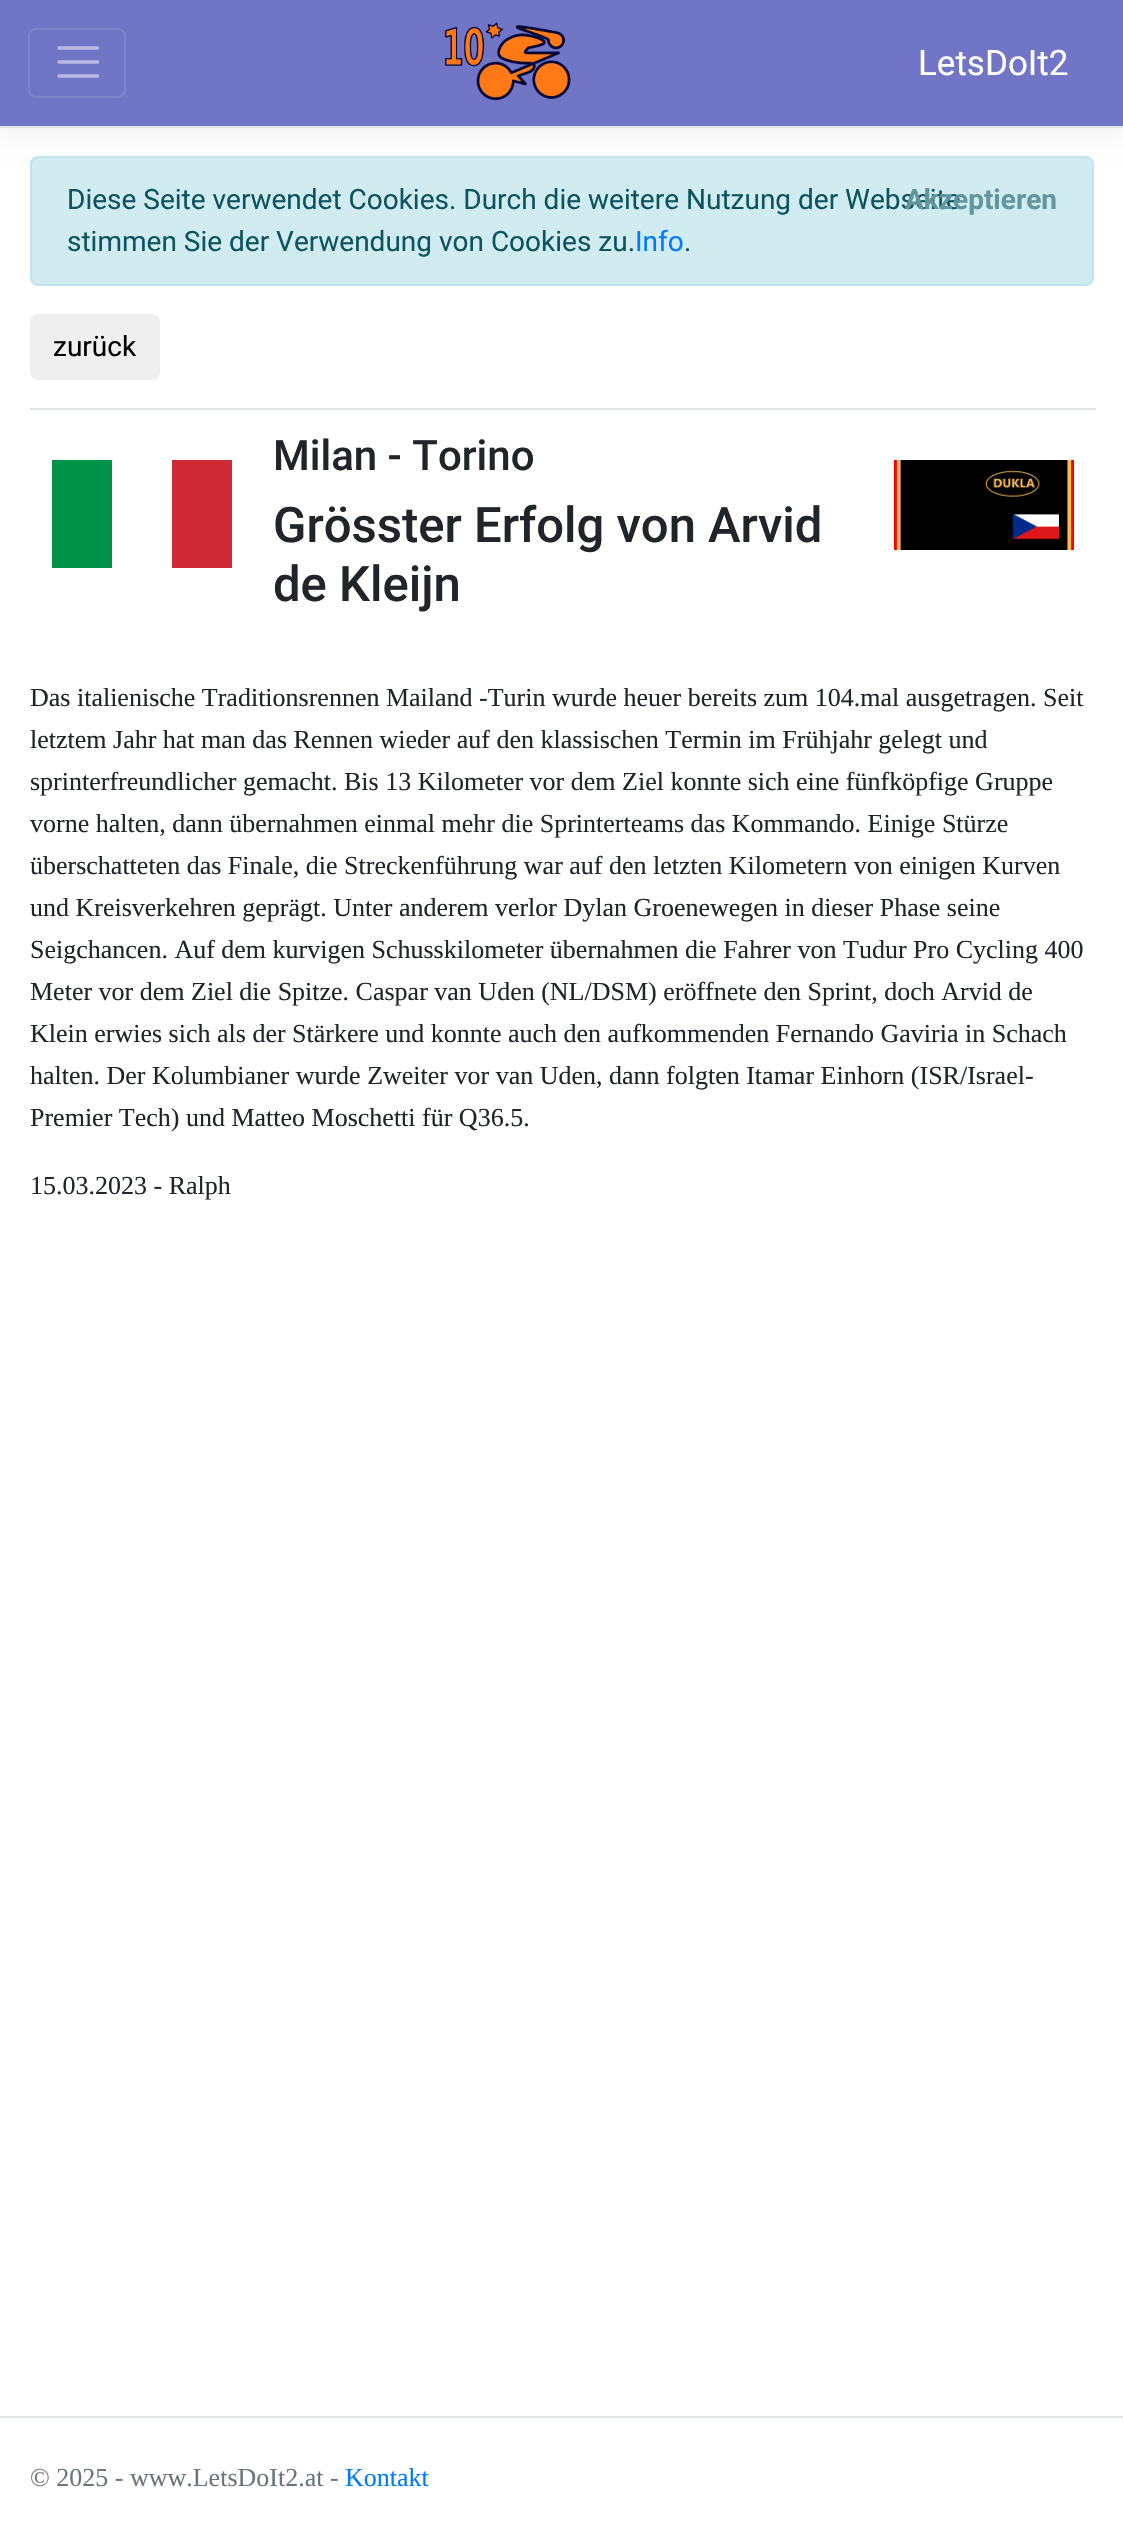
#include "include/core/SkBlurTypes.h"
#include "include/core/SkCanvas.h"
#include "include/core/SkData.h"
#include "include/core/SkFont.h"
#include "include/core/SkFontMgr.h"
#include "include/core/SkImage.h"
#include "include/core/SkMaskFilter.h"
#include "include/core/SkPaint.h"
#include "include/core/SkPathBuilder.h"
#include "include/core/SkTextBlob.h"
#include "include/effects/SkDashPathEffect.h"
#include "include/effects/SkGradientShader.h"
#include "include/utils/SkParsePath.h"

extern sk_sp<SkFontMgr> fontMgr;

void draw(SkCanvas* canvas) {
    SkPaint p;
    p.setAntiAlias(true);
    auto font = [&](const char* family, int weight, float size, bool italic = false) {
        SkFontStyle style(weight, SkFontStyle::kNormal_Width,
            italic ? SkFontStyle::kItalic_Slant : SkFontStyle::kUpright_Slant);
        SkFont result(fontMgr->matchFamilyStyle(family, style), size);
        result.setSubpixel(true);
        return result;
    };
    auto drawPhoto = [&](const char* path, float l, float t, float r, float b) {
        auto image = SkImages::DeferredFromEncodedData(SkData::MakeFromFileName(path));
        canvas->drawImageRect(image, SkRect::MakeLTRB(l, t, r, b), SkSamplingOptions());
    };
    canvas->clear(0xFFFFFFFF);
    p.setColor(0x0D000000);
    p.setMaskFilter(SkMaskFilter::MakeBlur(kNormal_SkBlurStyle, 10.5f));
    canvas->drawRect(SkRect::MakeLTRB(0, 8, 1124, 136), p);
    p.setMaskFilter(nullptr);
    p.setColor(0xFF7075C6);
    canvas->drawRect(SkRect::MakeLTRB(0, 0, 1123, 126), p);
    p.setColor(0xFFDEE2E6);
    canvas->drawRect(SkRect::MakeLTRB(0, 126, 1123, 128), p);
    p.setStyle(SkPaint::kStroke_Style);
    p.setStrokeWidth(2);
    p.setColor(0xFF7E83CC);
    canvas->drawRoundRect(SkRect::MakeLTRB(29, 29, 125, 97), 7, 7, p);
    p.setStrokeWidth(3.5f);
    p.setStrokeCap(SkPaint::kRound_Cap);
    p.setColor(0xFFB8BAE3);
    canvas->drawPath(SkPathBuilder().moveTo(59, 48).lineTo(97.5f, 48).moveTo(59, 62).lineTo(97.5f, 62).moveTo(59, 76).lineTo(97.5f, 76).detach(), p);
    drawPhoto("media/1.png", 444, 22, 571, 101);
    auto font1 = font("Roboto", 400, 35);
    p.setStyle(SkPaint::kFill_Style);
    p.setColor(0xFFFFFFFF);
    canvas->drawString("LetsDoIt2", 918, 75, font1, p);
    p.setColor(0xFFD1ECF1);
    canvas->drawRoundRect(SkRect::MakeLTRB(31, 157, 1093, 285), 7, 7, p);
    p.setStyle(SkPaint::kStroke_Style);
    p.setStrokeWidth(2);
    p.setStrokeCap(SkPaint::kButt_Cap);
    p.setColor(0xFFBEE5EB);
    canvas->drawRoundRect(SkRect::MakeLTRB(31, 157, 1093, 285), 7, 7, p);
    auto font2 = font("Roboto", 400, 28);
    p.setStyle(SkPaint::kFill_Style);
    p.setColor(0xFF0C5460);
    canvas->drawString("Diese Seite verwendet Cookies. Durch die weitere Nutzung der Webseite", 67, 209, font2, p);
    auto font3 = font("Roboto", 700, 28);
    p.setColor(0xFF61969F);
    canvas->drawString("Akzeptieren", 905, 209, font3, p);
    p.setColor(0xFF0C5460);
    canvas->drawString("stimmen Sie der Verwendung von Cookies zu.", 67, 251, font2, p);
    p.setColor(0xFF007BFF);
    canvas->drawString("Info", 635, 251, font2, p);
    p.setColor(0xFF0C5460);
    canvas->drawString(".", 684, 251, font2, p);
    p.setColor(0xFFEFEFEF);
    canvas->drawRoundRect(SkRect::MakeLTRB(30, 314, 160, 380), 8, 8, p);
    p.setColor(0xFF000000);
    canvas->drawString("zurück", 53, 356, font2, p);
    p.setColor(0xFFDEE2E6);
    canvas->drawRect(SkRect::MakeLTRB(30, 408, 1096, 410), p);
    drawPhoto("media/2.png", 894, 460, 1074, 550);
    drawPhoto("media/3.png", 52, 460, 232, 568);
    auto font4 = font("Roboto", 500, 42);
    p.setColor(0xFF212529);
    canvas->drawString("Milan - Torino", 273, 470, font4, p);
    auto font5 = font("Roboto", 500, 49);
    canvas->drawString("Grösster Erfolg von Arvid", 273, 542, font5, p);
    canvas->drawString("de Kleijn", 273, 601, font5, p);
    auto font6 = font("Liberation Serif", 400, 26);
    {
        const struct { const char* s; float x, y; } items[] = {
            {"Das italienische Traditionsrennen Mailand -Turin wurde heuer bereits zum 104.mal ausgetragen. Seit", 30, 706},
            {"letztem Jahr hat man das Rennen wieder auf den klassischen Termin im Frühjahr gelegt und", 30, 748},
            {"sprinterfreundlicher gemacht. Bis 13 Kilometer vor dem Ziel konnte sich eine fünfköpfige Gruppe", 30, 790},
            {"vorne halten, dann übernahmen einmal mehr die Sprinterteams das Kommando. Einige Stürze", 30, 832},
            {"überschatteten das Finale, die Streckenführung war auf den letzten Kilometern von einigen Kurven", 30, 874},
            {"und Kreisverkehren geprägt. Unter anderem verlor Dylan Groenewegen in dieser Phase seine", 30, 916},
            {"Seigchancen. Auf dem kurvigen Schusskilometer übernahmen die Fahrer von Tudur Pro Cycling 400", 30, 958},
            {"Meter vor dem Ziel die Spitze. Caspar van Uden (NL/DSM) eröffnete den Sprint, doch Arvid de", 30, 1000},
            {"Klein erwies sich als der Stärkere und konnte auch den aufkommenden Fernando Gaviria in Schach", 30, 1042},
            {"halten. Der Kolumbianer wurde Zweiter vor van Uden, dann folgten Itamar Einhorn (ISR/Israel-", 30, 1084},
            {"Premier Tech) und Matteo Moschetti für Q36.5.", 30, 1126},
            {"15.03.2023 - Ralph", 30, 1194},
        };
        for (auto [s, x, y] : items) {
            canvas->drawString(s, x, y, font6, p);
        }
    }
    p.setColor(0xFFDEE2E6);
    canvas->drawRect(SkRect::MakeLTRB(0, 2416, 1123, 2418), p);
    p.setColor(0xFF6C757D);
    canvas->drawString("© 2025 - www.LetsDoIt2.at -", 30, 2486, font6, p);
    p.setColor(0xFF007BFF);
    canvas->drawString("Kontakt", 345, 2486, font6, p);
}
